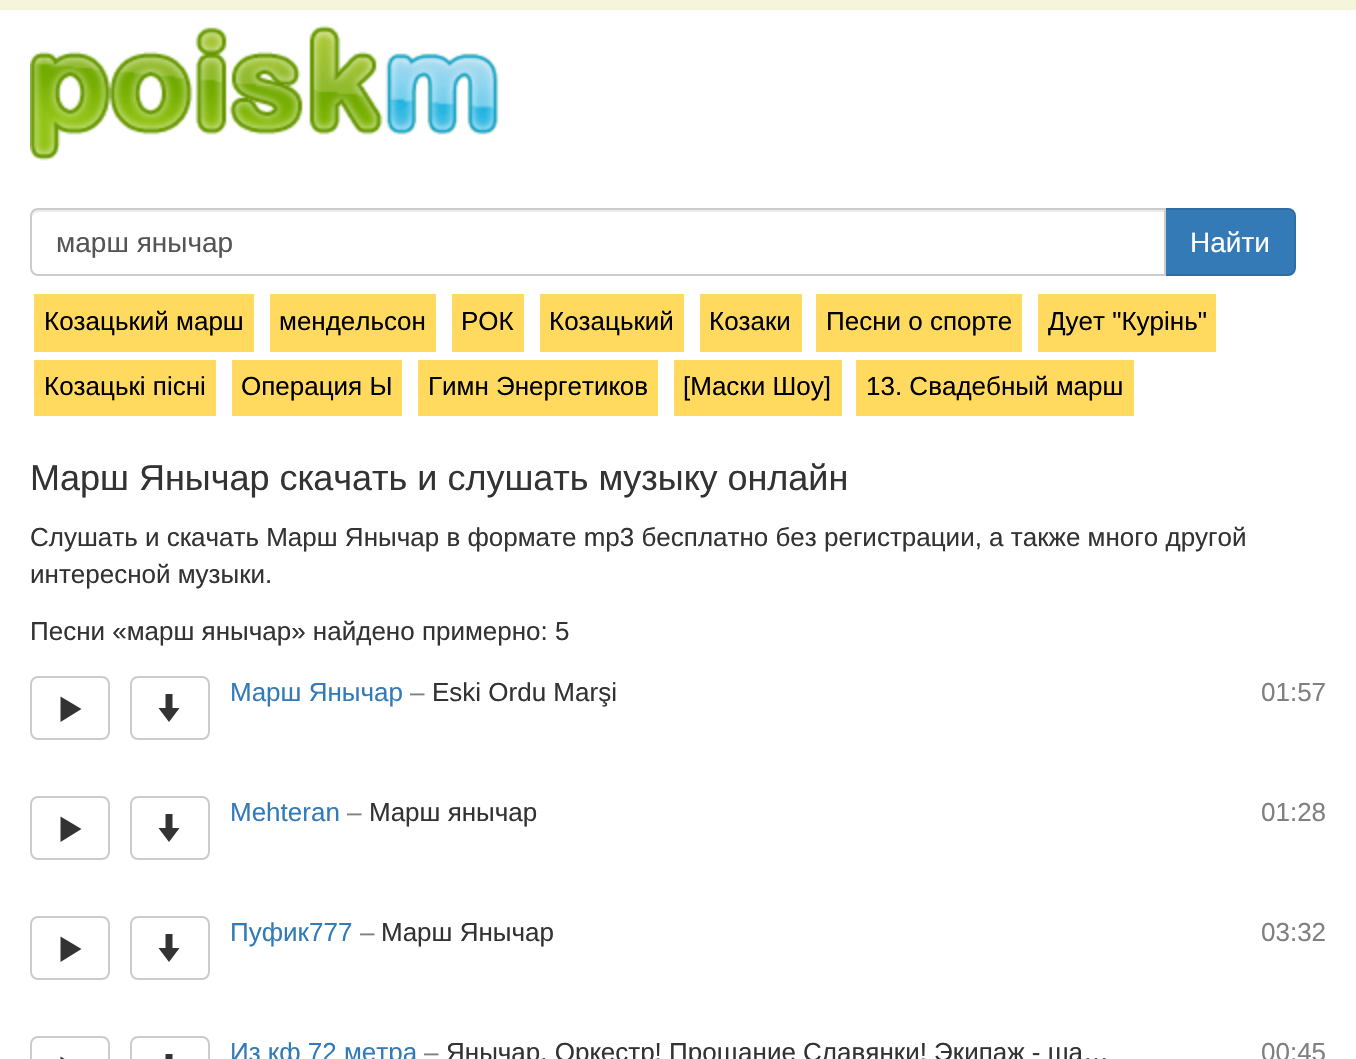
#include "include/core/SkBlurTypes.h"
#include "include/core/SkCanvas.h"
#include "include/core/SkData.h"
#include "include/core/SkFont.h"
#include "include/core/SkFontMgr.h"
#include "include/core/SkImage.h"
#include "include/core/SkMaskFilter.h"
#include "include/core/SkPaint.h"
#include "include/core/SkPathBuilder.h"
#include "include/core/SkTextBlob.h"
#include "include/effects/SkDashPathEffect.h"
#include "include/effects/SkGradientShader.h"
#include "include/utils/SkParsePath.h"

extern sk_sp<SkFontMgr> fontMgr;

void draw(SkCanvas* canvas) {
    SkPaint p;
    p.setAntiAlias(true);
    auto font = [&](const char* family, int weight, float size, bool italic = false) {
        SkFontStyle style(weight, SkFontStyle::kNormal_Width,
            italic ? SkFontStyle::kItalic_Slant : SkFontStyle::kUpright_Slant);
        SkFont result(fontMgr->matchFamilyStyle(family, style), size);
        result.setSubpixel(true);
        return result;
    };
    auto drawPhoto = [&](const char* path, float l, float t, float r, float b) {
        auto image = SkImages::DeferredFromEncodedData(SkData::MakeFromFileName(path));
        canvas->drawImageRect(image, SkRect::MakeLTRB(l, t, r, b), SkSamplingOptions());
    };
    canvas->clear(0xFFF5F5DC);
    p.setColor(0xFFFFFFFF);
    canvas->drawRect(SkRect::MakeLTRB(0, 10, 1356, 1059), p);
    drawPhoto("media/1.png", 30, 25, 499, 161);
    p.setColor(0xFF337AB7);
    canvas->drawPath(SkPathBuilder().moveTo(1165, 209).lineTo(1288, 209).cubicTo(1292, 209, 1295, 212, 1295, 216).lineTo(1295, 268).cubicTo(1295, 272, 1292, 275, 1288, 275).lineTo(1165, 275).close().detach(), p);
    p.setStyle(SkPaint::kStroke_Style);
    p.setStrokeWidth(2);
    p.setColor(0xFF2E6DA4);
    canvas->drawPath(SkPathBuilder().moveTo(1165, 209).lineTo(1288, 209).cubicTo(1292, 209, 1295, 212, 1295, 216).lineTo(1295, 268).cubicTo(1295, 272, 1292, 275, 1288, 275).lineTo(1165, 275).close().detach(), p);
    p.setStyle(SkPaint::kFill_Style);
    p.setColor(0xFFFFFFFF);
    canvas->drawPath(SkPathBuilder().moveTo(38, 208).lineTo(1166, 208).lineTo(1166, 276).lineTo(38, 276).cubicTo(33.5f, 276, 30, 272.5f, 30, 268).lineTo(30, 216).cubicTo(30, 211.5f, 33.5f, 208, 38, 208).close().detach(), p);
    p.setColor(0xFFECECEC);
    canvas->drawPath(SkPathBuilder().moveTo(38, 212).lineTo(1164, 212).lineTo(1164, 210).lineTo(38, 210).cubicTo(35, 210, 32, 213, 32, 216).lineTo(32, 218).cubicTo(32, 215, 35, 212, 38, 212).close().detach(), p);
    p.setStyle(SkPaint::kStroke_Style);
    p.setColor(0xFFCCCCCC);
    canvas->drawPath(SkPathBuilder().moveTo(38, 209).lineTo(1165, 209).lineTo(1165, 275).lineTo(38, 275).cubicTo(34, 275, 31, 272, 31, 268).lineTo(31, 216).cubicTo(31, 212, 34, 209, 38, 209).close().detach(), p);
    auto font1 = font("Liberation Sans", 400, 28);
    p.setStyle(SkPaint::kFill_Style);
    p.setColor(0xFF555555);
    canvas->drawString("марш янычар", 56, 252, font1, p);
    p.setColor(0xFFFFFFFF);
    canvas->drawString("Найти", 1190, 252, font1, p);
    p.setColor(0xFFFFDA5F);
    canvas->drawRect(SkRect::MakeLTRB(34, 294, 254, 352), p);
    auto font2 = font("Liberation Sans", 400, 26);
    p.setColor(0xFF000000);
    canvas->drawString("Козацький марш", 44, 330, font2, p);
    p.setColor(0xFFFFDA5F);
    canvas->drawRect(SkRect::MakeLTRB(270, 294, 436, 352), p);
    p.setColor(0xFF000000);
    canvas->drawString("мендельсон", 279, 330, font2, p);
    p.setColor(0xFFFFDA5F);
    canvas->drawRect(SkRect::MakeLTRB(452, 294, 524, 352), p);
    p.setColor(0xFF000000);
    canvas->drawString("РОК", 461, 330, font2, p);
    p.setColor(0xFFFFDA5F);
    canvas->drawRect(SkRect::MakeLTRB(540, 294, 684, 352), p);
    p.setColor(0xFF000000);
    canvas->drawString("Козацький", 549, 330, font2, p);
    p.setColor(0xFFFFDA5F);
    canvas->drawRect(SkRect::MakeLTRB(700, 294, 802, 352), p);
    p.setColor(0xFF000000);
    canvas->drawString("Козаки", 709, 330, font2, p);
    p.setColor(0xFFFFDA5F);
    canvas->drawRect(SkRect::MakeLTRB(816, 294, 1022, 352), p);
    p.setColor(0xFF000000);
    canvas->drawString("Песни о спорте", 826, 330, font2, p);
    p.setColor(0xFFFFDA5F);
    canvas->drawRect(SkRect::MakeLTRB(1038, 294, 1216, 352), p);
    p.setColor(0xFF000000);
    canvas->drawString("Дует \"Курінь\"", 1048, 330, font2, p);
    p.setColor(0xFFFFDA5F);
    canvas->drawRect(SkRect::MakeLTRB(34, 360, 216, 416), p);
    p.setColor(0xFF000000);
    canvas->drawString("Козацькі пісні", 44, 395, font2, p);
    p.setColor(0xFFFFDA5F);
    canvas->drawRect(SkRect::MakeLTRB(232, 360, 402, 416), p);
    p.setColor(0xFF000000);
    canvas->drawString("Операция Ы", 241, 395, font2, p);
    p.setColor(0xFFFFDA5F);
    canvas->drawRect(SkRect::MakeLTRB(418, 360, 658, 416), p);
    p.setColor(0xFF000000);
    canvas->drawString("Гимн Энергетиков", 428, 395, font2, p);
    p.setColor(0xFFFFDA5F);
    canvas->drawRect(SkRect::MakeLTRB(674, 360, 842, 416), p);
    p.setColor(0xFF000000);
    canvas->drawString("[Маски Шоу]", 683, 395, font2, p);
    p.setColor(0xFFFFDA5F);
    canvas->drawRect(SkRect::MakeLTRB(856, 360, 1134, 416), p);
    p.setColor(0xFF000000);
    canvas->drawString("13. Свадебный марш", 866, 395, font2, p);
    auto font3 = font("Liberation Sans", 400, 36);
    p.setColor(0xFF333333);
    canvas->drawString("Марш Янычар скачать и слушать музыку онлайн", 30, 490, font3, p);
    {
        const struct { const char* s; float x, y; } items[] = {
            {"Cлушать и скачать Марш Янычар в формате mp3 бесплатно без регистрации, а также много другой", 30, 546},
            {"интересной музыки.", 30, 583},
            {"Песни «марш янычар» найдено примерно: 5", 30, 640},
        };
        for (auto [s, x, y] : items) {
            canvas->drawString(s, x, y, font2, p);
        }
    }
    p.setStyle(SkPaint::kStroke_Style);
    p.setColor(0xFFCCCCCC);
    canvas->drawRoundRect(SkRect::MakeLTRB(31, 677, 109, 739), 7, 7, p);
    p.setStyle(SkPaint::kFill_Style);
    p.setColor(0xFF333333);
    canvas->drawPath(SkPathBuilder().moveTo(60.5f, 722).lineTo(81.5f, 709).lineTo(60.5f, 696.5f).close().detach(), p);
    p.setStyle(SkPaint::kStroke_Style);
    p.setColor(0xFFCCCCCC);
    canvas->drawRoundRect(SkRect::MakeLTRB(131, 677, 209, 739), 7, 7, p);
    p.setStyle(SkPaint::kFill_Style);
    p.setColor(0xFF333333);
    canvas->drawPath(SkPathBuilder().moveTo(158.5f, 708).lineTo(165.5f, 708).lineTo(165.5f, 694).lineTo(172.5f, 694).lineTo(172.5f, 708).lineTo(179.5f, 708).lineTo(169, 722).close().detach(), p);
    p.setColor(0xFF337AB7);
    canvas->drawString("Марш Янычар", 230, 701, font2, p);
    p.setColor(0xFF808080);
    canvas->drawString("–", 410, 701, font2, p);
    p.setColor(0xFF333333);
    canvas->drawString("Eski Ordu Marşi", 432, 701, font2, p);
    p.setColor(0xFF808080);
    canvas->drawString("01:57", 1261, 701, font2, p);
    p.setStyle(SkPaint::kStroke_Style);
    p.setColor(0xFFCCCCCC);
    canvas->drawRoundRect(SkRect::MakeLTRB(31, 797, 109, 859), 7, 7, p);
    p.setStyle(SkPaint::kFill_Style);
    p.setColor(0xFF333333);
    canvas->drawPath(SkPathBuilder().moveTo(60.5f, 842).lineTo(81.5f, 829).lineTo(60.5f, 816.5f).close().detach(), p);
    p.setStyle(SkPaint::kStroke_Style);
    p.setColor(0xFFCCCCCC);
    canvas->drawRoundRect(SkRect::MakeLTRB(131, 797, 209, 859), 7, 7, p);
    p.setStyle(SkPaint::kFill_Style);
    p.setColor(0xFF333333);
    canvas->drawPath(SkPathBuilder().moveTo(158.5f, 828).lineTo(165.5f, 828).lineTo(165.5f, 814).lineTo(172.5f, 814).lineTo(172.5f, 828).lineTo(179.5f, 828).lineTo(169, 842).close().detach(), p);
    p.setColor(0xFF337AB7);
    canvas->drawString("Mehteran", 230, 821, font2, p);
    p.setColor(0xFF808080);
    canvas->drawString("–", 347, 821, font2, p);
    p.setColor(0xFF333333);
    canvas->drawString("Марш янычар", 369, 821, font2, p);
    p.setColor(0xFF808080);
    canvas->drawString("01:28", 1261, 821, font2, p);
    p.setStyle(SkPaint::kStroke_Style);
    p.setColor(0xFFCCCCCC);
    canvas->drawRoundRect(SkRect::MakeLTRB(31, 917, 109, 979), 7, 7, p);
    p.setStyle(SkPaint::kFill_Style);
    p.setColor(0xFF333333);
    canvas->drawPath(SkPathBuilder().moveTo(60.5f, 962).lineTo(81.5f, 949).lineTo(60.5f, 936.5f).close().detach(), p);
    p.setStyle(SkPaint::kStroke_Style);
    p.setColor(0xFFCCCCCC);
    canvas->drawRoundRect(SkRect::MakeLTRB(131, 917, 209, 979), 7, 7, p);
    p.setStyle(SkPaint::kFill_Style);
    p.setColor(0xFF333333);
    canvas->drawPath(SkPathBuilder().moveTo(158.5f, 948).lineTo(165.5f, 948).lineTo(165.5f, 934).lineTo(172.5f, 934).lineTo(172.5f, 948).lineTo(179.5f, 948).lineTo(169, 962).close().detach(), p);
    p.setColor(0xFF337AB7);
    canvas->drawString("Пуфик777", 230, 941, font2, p);
    p.setColor(0xFF808080);
    canvas->drawString("–", 360, 941, font2, p);
    p.setColor(0xFF333333);
    canvas->drawString("Марш Янычар", 381, 941, font2, p);
    p.setColor(0xFF808080);
    canvas->drawString("03:32", 1261, 941, font2, p);
    p.setStyle(SkPaint::kStroke_Style);
    p.setColor(0xFFCCCCCC);
    canvas->drawRoundRect(SkRect::MakeLTRB(31, 1037, 109, 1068), 7, 7, p);
    p.setStyle(SkPaint::kFill_Style);
    p.setColor(0xFF333333);
    canvas->drawPath(SkPathBuilder().moveTo(60.5f, 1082).lineTo(81.5f, 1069).lineTo(60.5f, 1056.5f).close().detach(), p);
    p.setStyle(SkPaint::kStroke_Style);
    p.setColor(0xFFCCCCCC);
    canvas->drawRoundRect(SkRect::MakeLTRB(131, 1037, 209, 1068), 7, 7, p);
    p.setStyle(SkPaint::kFill_Style);
    p.setColor(0xFF333333);
    canvas->drawPath(SkPathBuilder().moveTo(158.5f, 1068).lineTo(165.5f, 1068).lineTo(165.5f, 1054).lineTo(172.5f, 1054).lineTo(172.5f, 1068).lineTo(179.5f, 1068).lineTo(169, 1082).close().detach(), p);
    p.setColor(0xFF337AB7);
    canvas->drawString("Из кф 72 метра", 230, 1061, font2, p);
    p.setColor(0xFF808080);
    canvas->drawString("–", 424, 1061, font2, p);
    p.setColor(0xFF333333);
    canvas->drawString("Янычар. Оркестр! Прощание Славянки! Экипаж - ша…", 446, 1061, font2, p);
    p.setColor(0xFF808080);
    canvas->drawString("00:45", 1261, 1061, font2, p);
}
